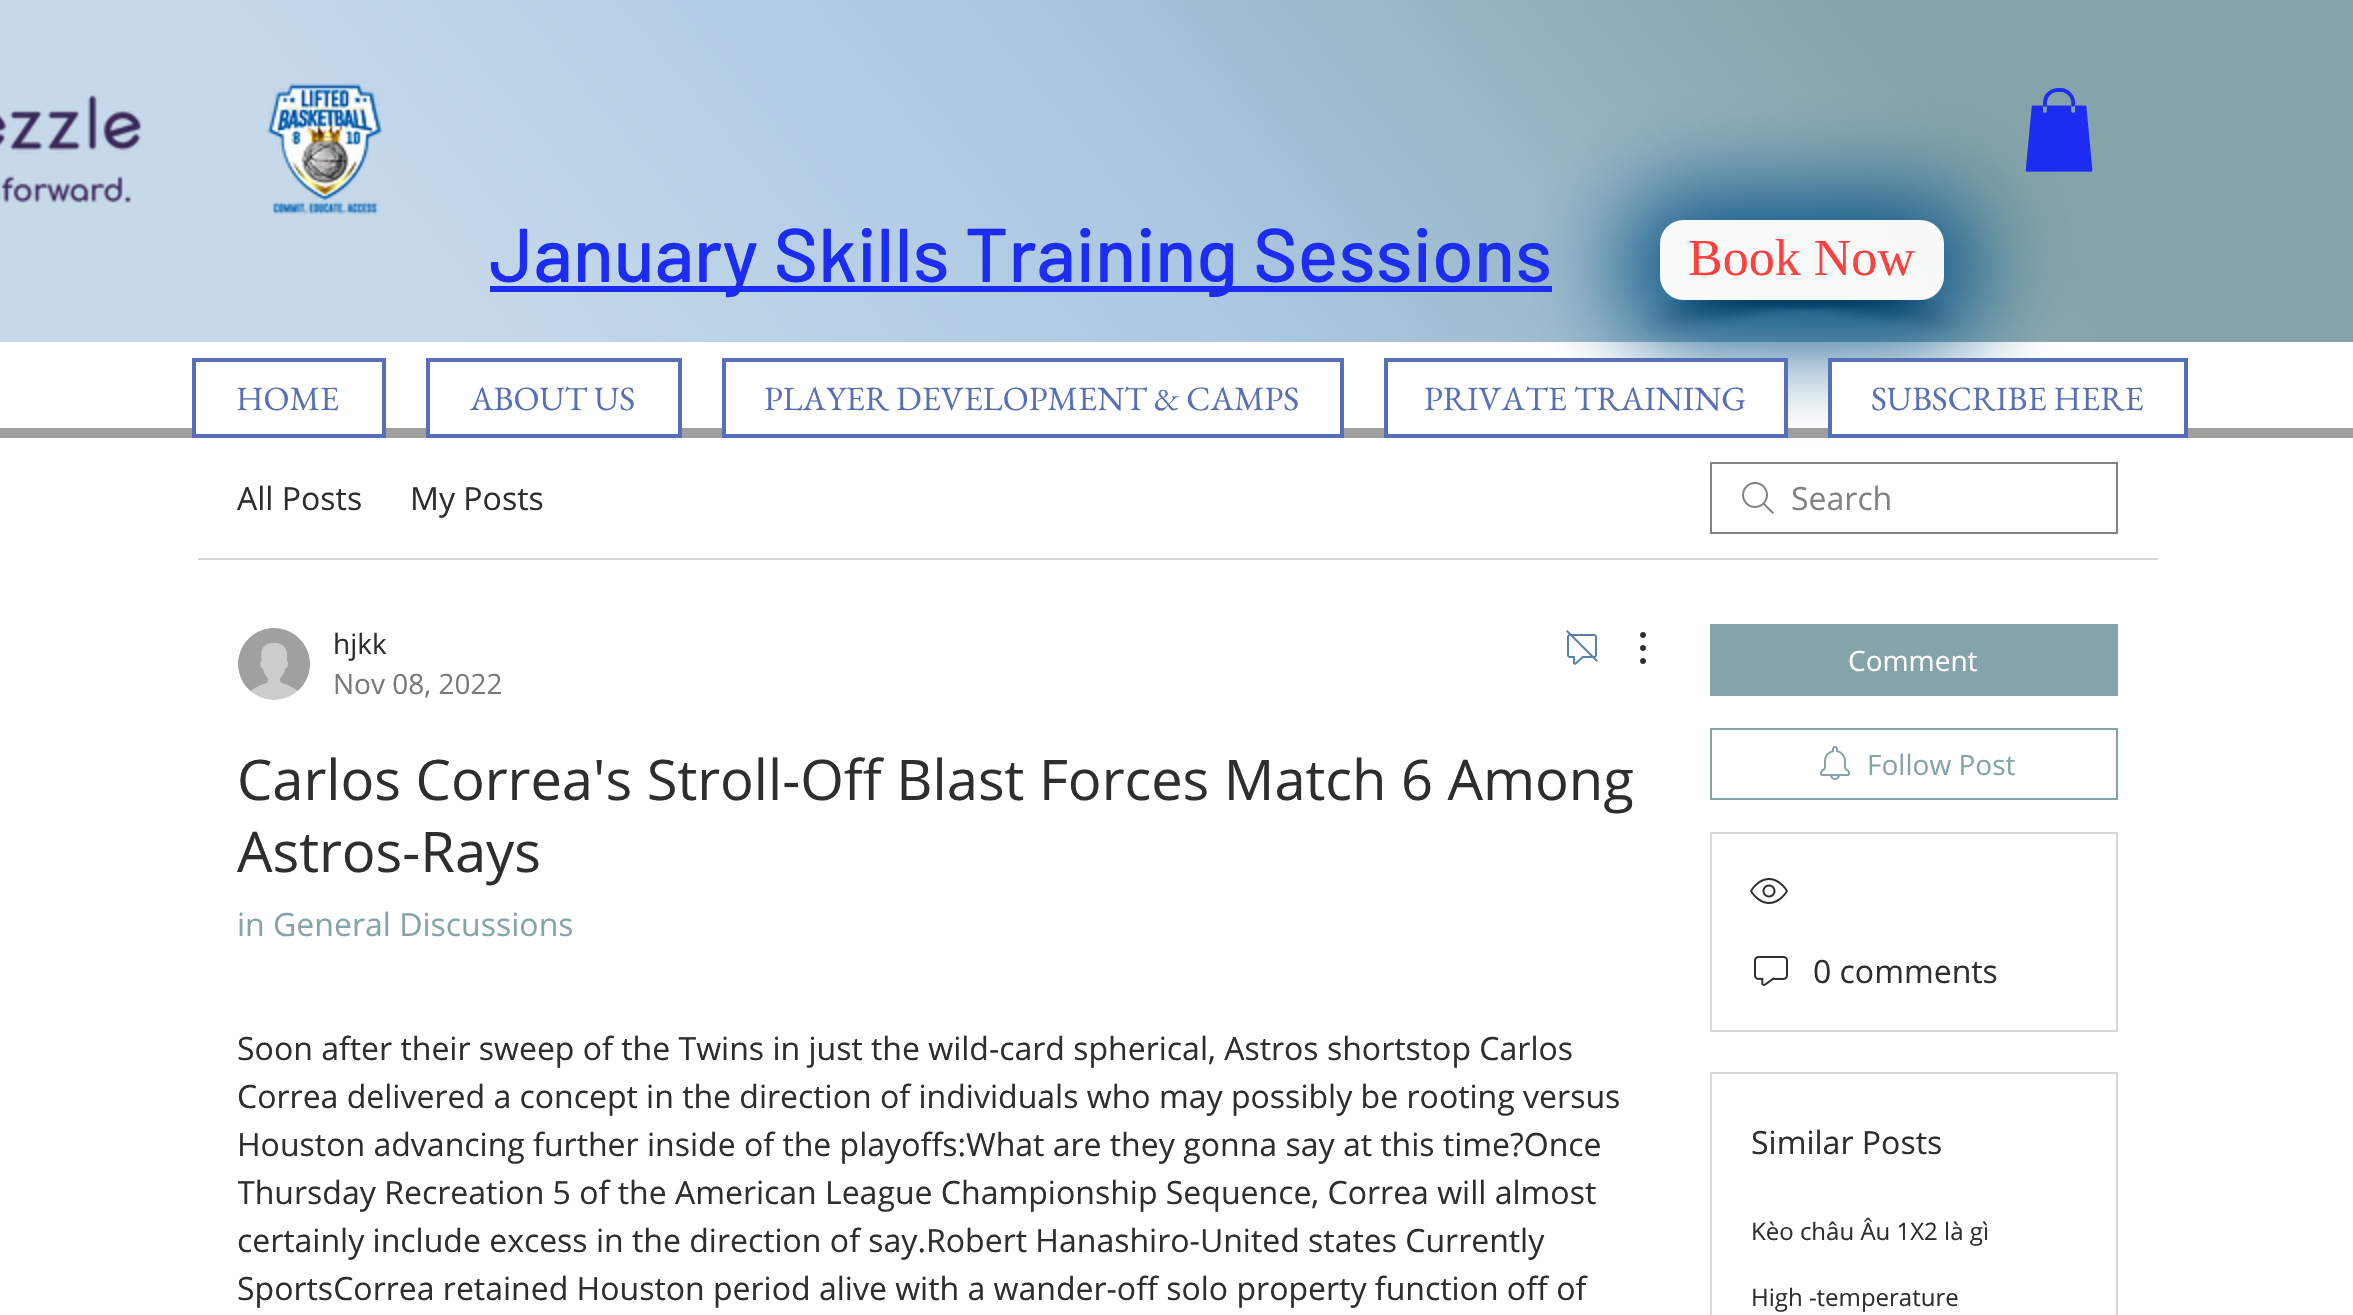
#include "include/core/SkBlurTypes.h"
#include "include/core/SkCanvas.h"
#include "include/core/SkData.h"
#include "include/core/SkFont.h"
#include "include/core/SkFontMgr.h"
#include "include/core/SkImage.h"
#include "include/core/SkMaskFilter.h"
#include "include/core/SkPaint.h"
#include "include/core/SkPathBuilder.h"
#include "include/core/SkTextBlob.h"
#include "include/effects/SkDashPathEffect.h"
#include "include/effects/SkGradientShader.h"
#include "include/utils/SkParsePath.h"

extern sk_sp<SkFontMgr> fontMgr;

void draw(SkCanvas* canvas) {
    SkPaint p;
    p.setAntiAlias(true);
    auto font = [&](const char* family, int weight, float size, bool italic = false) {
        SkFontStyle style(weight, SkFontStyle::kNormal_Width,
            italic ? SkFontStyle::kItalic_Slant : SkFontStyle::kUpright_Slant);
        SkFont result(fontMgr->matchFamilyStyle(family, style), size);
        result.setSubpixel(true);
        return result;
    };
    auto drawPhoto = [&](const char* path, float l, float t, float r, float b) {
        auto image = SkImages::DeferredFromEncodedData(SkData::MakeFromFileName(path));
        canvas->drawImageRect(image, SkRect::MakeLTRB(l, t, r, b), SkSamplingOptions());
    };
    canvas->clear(0xFFFFFFFF);
    {
        const SkColor colors[] = {0xFFC6D9EA, 0xFFABC8E2, 0xFF84A4A9};
        const float stops[] = {0.17f, 0.48f, 0.81f};
        const SkPoint ends[] = {{392, 818}, {1962, -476}};
        p.setShader(SkGradientShader::MakeLinear(ends, colors, stops, 3, SkTileMode::kClamp));
        p.setAlpha(255);
    }
    canvas->drawRect(SkRect::MakeLTRB(0, 0, 2353, 342), p);
    drawPhoto("media/1.png", 0, 95, 143, 203);
    drawPhoto("media/2.png", 267, 83, 383, 215);
    p.setShader(nullptr);
    p.setColor(0xFF1D2CF3);
    canvas->drawRect(SkRect::MakeLTRB(490, 286, 1552, 292), p);
    drawPhoto("media/4.png", 1643, 299, 1940, 335);
    drawPhoto("media/5.png", 1664, 299, 1961, 335);
    p.setColor(0xFFA0A09F);
    canvas->drawRect(SkRect::MakeLTRB(0, 428, 2353, 438), p);
    drawPhoto("media/6.png", 1742, 482, 1774, 514);
    p.setStyle(SkPaint::kStroke_Style);
    p.setStrokeWidth(2);
    p.setColor(0xFF828282);
    canvas->drawRect(SkRect::MakeLTRB(1711, 463, 2117, 533), p);
    canvas->save();
    canvas->clipPath(SkPathBuilder(SkPathFillType::kEvenOdd).moveTo(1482, 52).lineTo(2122, 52).lineTo(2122, 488).lineTo(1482, 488).close().moveTo(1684, 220).lineTo(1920, 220).cubicTo(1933.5f, 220, 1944, 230.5f, 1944, 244).lineTo(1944, 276).cubicTo(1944, 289.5f, 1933.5f, 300, 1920, 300).lineTo(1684, 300).cubicTo(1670.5f, 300, 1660, 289.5f, 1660, 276).lineTo(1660, 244).cubicTo(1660, 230.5f, 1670.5f, 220, 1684, 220).close().detach(), true);
    p.setStyle(SkPaint::kFill_Style);
    p.setColor(0xF7045184);
    p.setMaskFilter(SkMaskFilter::MakeBlur(kNormal_SkBlurStyle, 47));
    canvas->drawRoundRect(SkRect::MakeLTRB(1624, 194, 1980, 346), 60, 60, p);
    p.setMaskFilter(nullptr);
    canvas->restore();
    drawPhoto("media/3.png", 2025, 88, 2093, 172);
    auto font1 = font("Barlow", 500, 76);
    p.setColor(0xFF1D2CF3);
    canvas->drawString("January Skills Training Sessions", 489, 282, font1, p);
    p.setColor(0xEDFFFFFE);
    canvas->drawRoundRect(SkRect::MakeLTRB(1660, 220, 1944, 300), 24, 24, p);
    auto font2 = font("Liberation Serif", 400, 52);
    p.setColor(0xFFFF4040);
    canvas->drawString("Book Now", 1688, 275, font2, p);
    p.setColor(0xFFFFFFFF);
    canvas->drawRect(SkRect::MakeLTRB(196, 428, 382, 434), p);
    p.setStyle(SkPaint::kStroke_Style);
    p.setStrokeWidth(4);
    p.setColor(0xFF566FB8);
    canvas->drawRect(SkRect::MakeLTRB(194, 360, 384, 436), p);
    auto font3 = font("EB Garamond", 400, 34);
    p.setStyle(SkPaint::kFill_Style);
    canvas->drawString("HOME", 236, 410, font3, p);
    p.setColor(0xFFFFFFFF);
    canvas->drawRect(SkRect::MakeLTRB(430, 428, 678, 434), p);
    p.setStyle(SkPaint::kStroke_Style);
    p.setColor(0xFF566FB8);
    canvas->drawRect(SkRect::MakeLTRB(428, 360, 680, 436), p);
    p.setStyle(SkPaint::kFill_Style);
    canvas->drawString("ABOUT US", 470, 410, font3, p);
    p.setColor(0xFFFFFFFF);
    canvas->drawRect(SkRect::MakeLTRB(726, 428, 1340, 434), p);
    p.setStyle(SkPaint::kStroke_Style);
    p.setColor(0xFF566FB8);
    canvas->drawRect(SkRect::MakeLTRB(724, 360, 1342, 436), p);
    p.setStyle(SkPaint::kFill_Style);
    canvas->drawString("PLAYER DEVELOPMENT & CAMPS", 764, 410, font3, p);
    p.setColor(0xFFFFFFFF);
    canvas->drawRect(SkRect::MakeLTRB(1386, 360, 1786, 436), p);
    p.setStyle(SkPaint::kStroke_Style);
    p.setColor(0xFF566FB8);
    canvas->drawRect(SkRect::MakeLTRB(1386, 360, 1786, 436), p);
    p.setStyle(SkPaint::kFill_Style);
    canvas->drawString("PRIVATE TRAINING", 1424, 410, font3, p);
    p.setColor(0xFFFFFFFF);
    canvas->drawRect(SkRect::MakeLTRB(1830, 360, 2186, 436), p);
    p.setStyle(SkPaint::kStroke_Style);
    p.setColor(0xFF566FB8);
    canvas->drawRect(SkRect::MakeLTRB(1830, 360, 2186, 436), p);
    p.setStyle(SkPaint::kFill_Style);
    canvas->drawString("SUBSCRIBE HERE", 1871, 410, font3, p);
    p.setColor(0xFFD5D5D5);
    canvas->drawRect(SkRect::MakeLTRB(198, 558, 2158, 560), p);
    auto font4 = font("Open Sans", 400, 32);
    p.setColor(0xFF2F2E2E);
    canvas->drawString("All Posts", 237, 510, font4, p);
    canvas->drawString("My Posts", 410, 510, font4, p);
    p.setColor(0xFF828282);
    canvas->drawString("Search", 1791, 510, font4, p);
    drawPhoto("media/7.png", 238, 628, 310, 700);
    auto font5 = font("Open Sans", 400, 28);
    p.setColor(0xFF2F2E2E);
    canvas->drawString("hjkk", 333, 654, font5, p);
    p.setColor(0xFF7A7979);
    canvas->drawString("Nov 08, 2022", 333, 694, font5, p);
    drawPhoto("media/8.png", 1566, 630, 1598, 665);
    drawPhoto("media/9.png", 1640, 632, 1646, 664);
    auto font6 = font("Open Sans", 400, 56);
    p.setColor(0xFF2F2E2E);
    canvas->drawString("Carlos Correa's Stroll-Off Blast Forces Match 6 Among", 237, 800, font6, p);
    canvas->drawString("Astros-Rays", 237, 872, font6, p);
    p.setColor(0xFF84A4A9);
    canvas->drawString("in General Discussions", 237, 936, font4, p);
    p.setColor(0xFF2F2E2E);
    {
        const struct { const char* s; float x, y; } items[] = {
            {"Soon after their sweep of the Twins in just the wild-card spherical, Astros shortstop Carlos", 237, 1060},
            {"Correa delivered a concept in the direction of individuals who may possibly be rooting versus", 237, 1108},
            {"Houston advancing further inside of the playoffs:What are they gonna say at this time?Once", 237, 1156},
        };
        for (auto [s, x, y] : items) {
            canvas->drawString(s, x, y, font4, p);
        }
    }
    canvas->save();
    canvas->clipRect(SkRect::MakeLTRB(238, 976, 1646, 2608));
    canvas->drawString("Thursday Recreation 5 of the American League Championship Sequence, Correa will almost", 237, 1204, font4, p);
    canvas->restore();
    canvas->drawString("certainly include excess in the direction of say.Robert Hanashiro-United states Currently", 237, 1252, font4, p);
    canvas->drawString("SportsCorrea retained Houston period alive with a wander-off solo property function off of", 237, 1300, font4, p);
    p.setColor(0xFF84A4A9);
    canvas->drawRect(SkRect::MakeLTRB(1710, 624, 2118, 696), p);
    p.setColor(0xFFFFFFFF);
    canvas->drawString("Comment", 1848, 671, font5, p);
    p.setStyle(SkPaint::kStroke_Style);
    p.setStrokeWidth(2);
    p.setColor(0xFF84A4A9);
    canvas->drawRect(SkRect::MakeLTRB(1711, 729, 2117, 799), p);
    drawPhoto("media/10.png", 1820, 746, 1850, 780);
    p.setStyle(SkPaint::kFill_Style);
    canvas->drawString("Follow Post", 1867, 775, font5, p);
    p.setStyle(SkPaint::kStroke_Style);
    p.setColor(0xFFD5D5D5);
    canvas->drawRect(SkRect::MakeLTRB(1711, 833, 2117, 1031), p);
    drawPhoto("media/11.png", 1750, 878, 1788, 904);
    drawPhoto("media/12.png", 1754, 956, 1788, 986);
    p.setStyle(SkPaint::kFill_Style);
    p.setColor(0xFF2F2E2E);
    canvas->drawString("0 comments", 1813, 983, font4, p);
    p.setStyle(SkPaint::kStroke_Style);
    p.setColor(0xFFD5D5D5);
    canvas->drawRect(SkRect::MakeLTRB(1711, 1073, 2117, 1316), p);
    p.setStyle(SkPaint::kFill_Style);
    p.setColor(0xFF2F2E2E);
    canvas->drawString("Similar Posts", 1751, 1154, font4, p);
    auto font7 = font("Open Sans", 400, 24);
    canvas->drawString("Kèo châu Âu 1X2 là gì", 1751, 1240, font7, p);
    canvas->drawString("High -temperature", 1751, 1306, font7, p);
}
